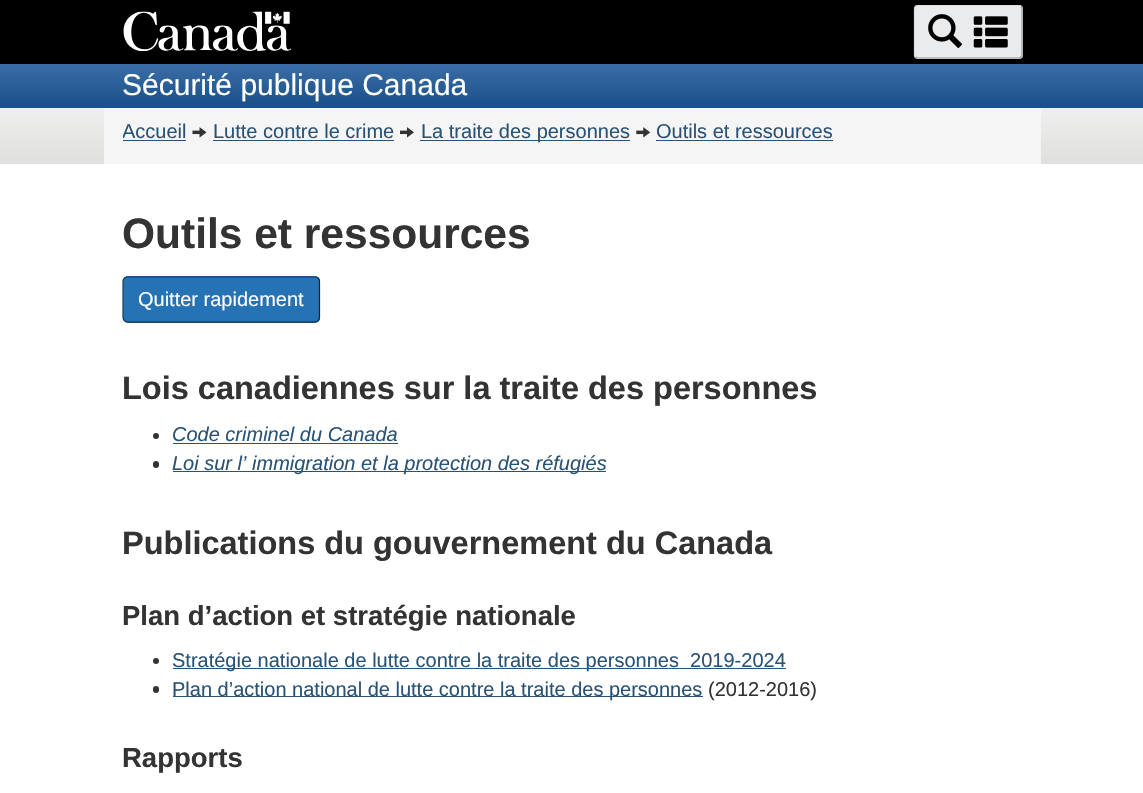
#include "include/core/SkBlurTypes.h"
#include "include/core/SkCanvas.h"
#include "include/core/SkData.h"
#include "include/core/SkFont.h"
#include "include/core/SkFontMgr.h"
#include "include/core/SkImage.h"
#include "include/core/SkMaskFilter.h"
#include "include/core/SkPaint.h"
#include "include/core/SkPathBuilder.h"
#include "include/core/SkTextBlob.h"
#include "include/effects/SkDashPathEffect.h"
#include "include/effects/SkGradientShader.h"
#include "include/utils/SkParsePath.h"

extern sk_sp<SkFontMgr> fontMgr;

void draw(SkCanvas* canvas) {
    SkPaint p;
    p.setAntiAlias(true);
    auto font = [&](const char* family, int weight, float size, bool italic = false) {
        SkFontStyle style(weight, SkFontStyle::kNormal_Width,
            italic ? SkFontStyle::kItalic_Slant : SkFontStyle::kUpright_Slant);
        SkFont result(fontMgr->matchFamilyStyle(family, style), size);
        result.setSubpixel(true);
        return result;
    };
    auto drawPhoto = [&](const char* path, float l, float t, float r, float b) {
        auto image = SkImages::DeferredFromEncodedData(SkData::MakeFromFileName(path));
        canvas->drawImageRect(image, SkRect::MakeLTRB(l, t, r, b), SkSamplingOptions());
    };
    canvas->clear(0xFFFFFFFF);
    {
        const SkColor colors[] = {0xFF4474AD, 0xFF4474AD, 0xFF174F88};
        const float stops[] = {0, 0.5f, 1};
        const SkPoint ends[] = {{572, 0}, {572, 108}};
        p.setShader(SkGradientShader::MakeLinear(ends, colors, stops, 3, SkTileMode::kClamp));
        p.setAlpha(255);
    }
    canvas->drawRect(SkRect::MakeLTRB(0, 64, 1143, 108), p);
    p.setShader(nullptr);
    p.setColor(0xFF000000);
    canvas->drawRect(SkRect::MakeLTRB(0, 0, 1143, 64), p);
    p.setColor(0xFFEAEBED);
    canvas->drawRoundRect(SkRect::MakeLTRB(914, 5, 1023, 59), 4, 4, p);
    p.setStyle(SkPaint::kStroke_Style);
    p.setStrokeWidth(1.2f);
    p.setColor(0xFF939496);
    canvas->drawPath(SkPathBuilder().moveTo(1021, 6.5f).lineTo(1022, 8.5f).lineTo(1022, 55).lineTo(1021, 57).lineTo(1019, 58).lineTo(917.5f, 58).lineTo(915.5f, 57).detach(), p);
    p.setColor(0xFFDCDEE1);
    canvas->drawPath(SkPathBuilder().moveTo(915.5f, 57).lineTo(914.5f, 55).lineTo(914.5f, 9).lineTo(915.5f, 6.5f).lineTo(917.5f, 5.5f).lineTo(1019, 5.5f).lineTo(1021, 6.5f).detach(), p);
    drawPhoto("media/1.png", 928, 14, 962, 48);
    drawPhoto("media/2.png", 973, 16, 1008, 48);
    drawPhoto("media/3.png", 123, 11, 291, 51);
    auto font1 = font("Liberation Sans", 400, 30);
    p.setStyle(SkPaint::kFill_Style);
    p.setColor(0xFFFFFFFF);
    canvas->drawString("Sécurité publique Canada", 122, 95, font1, p);
    {
        const SkColor colors[] = {0xFFF0EFEF, 0xFFDFDFDD};
        const float stops[] = {0, 1};
        const SkPoint ends[] = {{572, 107}, {572, 164}};
        p.setShader(SkGradientShader::MakeLinear(ends, colors, stops, 2, SkTileMode::kClamp));
        p.setAlpha(255);
    }
    canvas->drawRect(SkRect::MakeLTRB(0, 108, 1143, 164), p);
    p.setShader(nullptr);
    p.setColor(0xFFF5F5F5);
    canvas->drawRect(SkRect::MakeLTRB(104, 108, 1041, 164), p);
    canvas->save();
    canvas->clipRect(SkRect::MakeLTRB(123, 118, 186, 146));
    auto font2 = font("Liberation Sans", 400, 20);
    p.setColor(0xFF295376);
    canvas->drawString("Accueil", 122, 138, font2, p);
    canvas->restore();
    canvas->drawRect(SkRect::MakeLTRB(123, 140, 186, 141), p);
    drawPhoto("media/4.png", 192, 127, 207, 138);
    canvas->drawString("Lutte contre le crime", 213, 138, font2, p);
    canvas->drawRect(SkRect::MakeLTRB(213, 140, 394, 141), p);
    drawPhoto("media/5.png", 400, 127, 414, 138);
    canvas->drawRect(SkRect::MakeLTRB(420, 140, 630, 141), p);
    canvas->drawString("La traite des personnes", 421, 138, font2, p);
    drawPhoto("media/6.png", 636, 127, 651, 138);
    canvas->drawString("Outils et ressources", 656, 138, font2, p);
    canvas->drawRect(SkRect::MakeLTRB(656, 140, 833, 141), p);
    auto font3 = font("Liberation Sans", 700, 42.5f);
    p.setColor(0xFF333333);
    canvas->drawString("Outils et ressources", 122, 248, font3, p);
    p.setColor(0xFF2572B4);
    canvas->drawRoundRect(SkRect::MakeLTRB(123, 276, 320, 323), 5, 5, p);
    p.setStyle(SkPaint::kStroke_Style);
    p.setColor(0xFF0D283F);
    canvas->drawPath(SkPathBuilder().moveTo(318, 278).cubicTo(319, 279, 319.5f, 280, 319.5f, 281).lineTo(319.5f, 317.5f).cubicTo(319.5f, 318.5f, 319, 320, 318, 320.5f).cubicTo(317.5f, 321.5f, 316, 322, 315, 322).lineTo(127.5f, 322).cubicTo(126.5f, 322, 125, 321.5f, 124.5f, 320.5f).detach(), p);
    p.setColor(0xFF143C5F);
    canvas->drawPath(SkPathBuilder().moveTo(124.5f, 320.5f).cubicTo(123.5f, 320, 123, 318.5f, 123, 317.5f).lineTo(123, 281).cubicTo(123, 280, 123.5f, 279, 124.5f, 278).cubicTo(125, 277.5f, 126.5f, 277, 127.5f, 277).lineTo(315, 277).cubicTo(316, 277, 317.5f, 277.5f, 318, 278).detach(), p);
    p.setStyle(SkPaint::kFill_Style);
    p.setColor(0xFFFFFFFF);
    canvas->drawString("Quitter rapidement", 138, 306, font2, p);
    auto font4 = font("Liberation Sans", 700, 32.5f);
    p.setColor(0xFF333333);
    canvas->drawString("Lois canadiennes sur la traite des personnes", 122, 399, font4, p);
    canvas->drawCircle(156, 436, 3, p);
    auto font5 = font("Liberation Sans", 400, 20, true);
    p.setColor(0xFF295376);
    canvas->drawString("Code criminel du Canada", 172, 441, font5, p);
    canvas->drawRect(SkRect::MakeLTRB(173, 443, 398, 444), p);
    p.setColor(0xFF333333);
    canvas->drawRoundRect(SkRect::MakeLTRB(153, 461, 159, 468), 3, 3, p);
    p.setColor(0xFF295376);
    canvas->drawRect(SkRect::MakeLTRB(173, 471, 606, 472), p);
    canvas->drawString("Loi sur l’ immigration et la protection des réfugiés", 172, 470, font5, p);
    p.setColor(0xFF333333);
    canvas->drawString("Publications du gouvernement du Canada", 122, 554, font4, p);
    auto font6 = font("Liberation Sans", 700, 27.5f);
    canvas->drawString("Plan d’action et stratégie nationale", 122, 625, font6, p);
    canvas->drawCircle(156, 661, 3, p);
    p.setColor(0xFF295376);
    canvas->drawRect(SkRect::MakeLTRB(173, 668, 786, 669), p);
    canvas->drawString("Stratégie nationale de lutte contre la traite des personnes  2019-2024", 172, 667, font2, p);
    p.setColor(0xFF333333);
    canvas->drawRoundRect(SkRect::MakeLTRB(153, 686, 159, 693), 3, 3, p);
    p.setColor(0xFF295376);
    canvas->drawRect(SkRect::MakeLTRB(173, 696, 703, 697), p);
    canvas->drawString("Plan d’action national de lutte contre la traite des personnes", 172, 696, font2, p);
    p.setColor(0xFF333333);
    canvas->drawString("(2012-2016)", 708, 696, font2, p);
    canvas->drawString("Rapports", 122, 767, font6, p);
}
